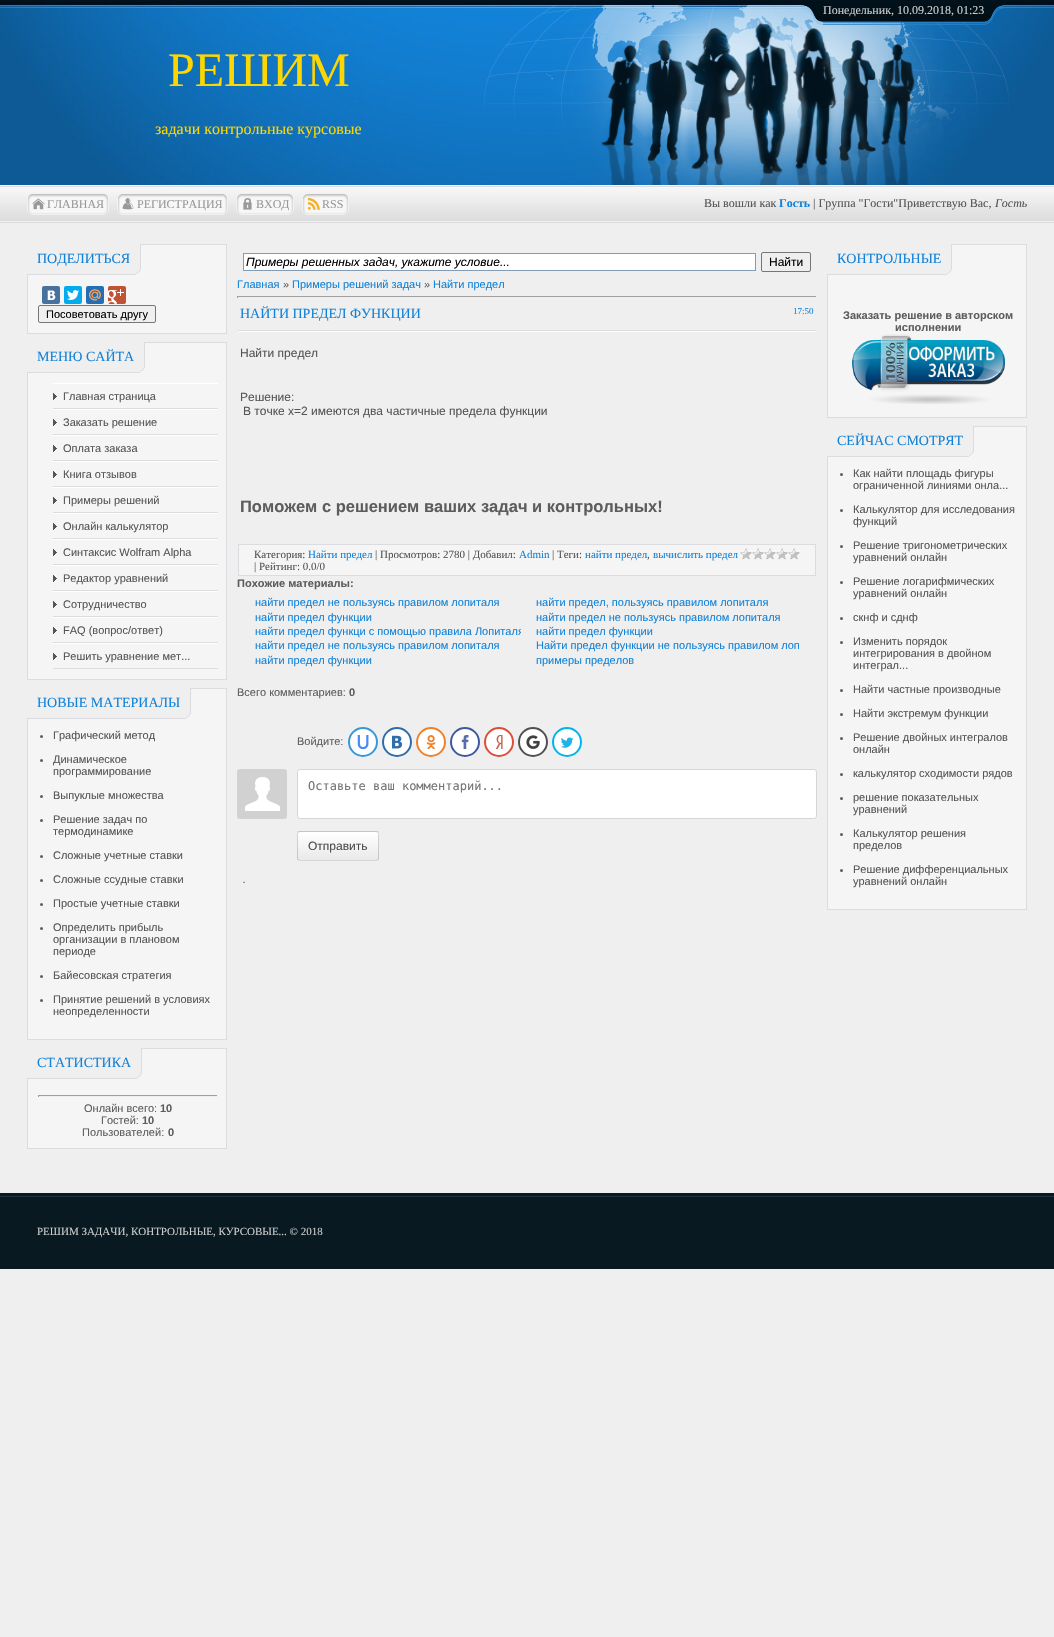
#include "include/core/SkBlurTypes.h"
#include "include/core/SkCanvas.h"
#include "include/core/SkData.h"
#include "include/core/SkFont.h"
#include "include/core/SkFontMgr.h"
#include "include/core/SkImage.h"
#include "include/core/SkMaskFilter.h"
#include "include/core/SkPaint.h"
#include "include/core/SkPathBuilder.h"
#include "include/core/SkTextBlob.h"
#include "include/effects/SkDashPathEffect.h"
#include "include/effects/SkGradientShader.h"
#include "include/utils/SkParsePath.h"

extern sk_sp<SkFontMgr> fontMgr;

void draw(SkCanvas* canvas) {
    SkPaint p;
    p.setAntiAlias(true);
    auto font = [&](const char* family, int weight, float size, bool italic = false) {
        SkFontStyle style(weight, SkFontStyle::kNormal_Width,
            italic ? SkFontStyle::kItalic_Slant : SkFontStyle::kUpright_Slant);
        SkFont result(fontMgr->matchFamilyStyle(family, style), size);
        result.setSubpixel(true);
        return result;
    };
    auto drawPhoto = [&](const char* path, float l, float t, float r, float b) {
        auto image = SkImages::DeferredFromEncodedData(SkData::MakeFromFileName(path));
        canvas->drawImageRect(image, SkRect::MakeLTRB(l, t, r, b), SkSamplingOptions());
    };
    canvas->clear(0xFFEFEFEF);
    drawPhoto("media/1.png", 0, 185, 1054, 223);
    drawPhoto("media/2.png", 0, 0, 1054, 185);
    drawPhoto("media/3.png", 484, 5, 1009, 185);
    drawPhoto("media/4.png", 801, 3, 823, 25);
    drawPhoto("media/5.png", 823, 0, 984, 25);
    auto font1 = font("Liberation Serif", 400, 12);
    p.setColor(0xFFCCCCCC);
    canvas->drawString("Понедельник, 10.09.2018, 01:23", 823, 14, font1, p);
    drawPhoto("media/6.png", 984, 0, 1007, 25);
    auto font2 = font("Liberation Serif", 400, 48);
    p.setColor(0xFFFFD700);
    canvas->drawString("РЕШИМ", 168, 86, font2, p);
    auto font3 = font("Liberation Serif", 400, 16);
    canvas->drawString("задачи контрольные курсовые", 155, 134, font3, p);
    drawPhoto("media/7.png", 27, 194, 32, 215);
    drawPhoto("media/8.png", 32, 194, 104, 215);
    drawPhoto("media/9.png", 32, 198, 45, 210);
    p.setColor(0xFF999999);
    canvas->drawString("ГЛАВНАЯ", 47, 208, font1, p);
    drawPhoto("media/10.png", 104, 194, 109, 215);
    drawPhoto("media/7.png", 117, 194, 122, 215);
    drawPhoto("media/11.png", 122, 194, 223, 215);
    drawPhoto("media/12.png", 122, 198, 134, 210);
    canvas->drawString("РЕГИСТРАЦИЯ", 137, 208, font1, p);
    drawPhoto("media/10.png", 223, 194, 228, 215);
    drawPhoto("media/7.png", 236, 194, 241, 215);
    drawPhoto("media/13.png", 241, 194, 289, 215);
    drawPhoto("media/14.png", 243, 198, 252, 210);
    canvas->drawString("ВХОД", 256, 208, font1, p);
    drawPhoto("media/10.png", 289, 194, 294, 215);
    drawPhoto("media/7.png", 302, 194, 307, 215);
    drawPhoto("media/15.png", 307, 194, 344, 215);
    drawPhoto("media/16.png", 307, 197, 320, 210);
    canvas->drawString("RSS", 322, 208, font1, p);
    drawPhoto("media/10.png", 344, 194, 349, 215);
    p.setColor(0xFF555555);
    canvas->drawString("Вы вошли как", 704, 207, font1, p);
    auto font4 = font("Liberation Serif", 700, 12);
    p.setColor(0xFF1282D8);
    canvas->drawString("Гость", 779, 207, font4, p);
    p.setColor(0xFF555555);
    canvas->drawString("| Группа \"Гости\"Приветствую Вас,", 813, 207, font1, p);
    auto font5 = font("Liberation Serif", 400, 12, true);
    canvas->drawString("Гость", 995, 207, font5, p);
    {
        const struct { float l, t, r, b; SkColor color; } items[] = {
            {28, 245, 226, 333, 0xFFF5F5F5},
            {141, 244, 227, 245, 0xFFDCDBE0},
            {226, 244, 227, 334, 0xFFDCDBE0},
            {28, 245, 136, 274, 0xFFEFEFEF},
            {27, 274, 136, 275, 0xFFDCDBE0},
        };
        for (auto [l, t, r, b, color] : items) {
            p.setColor(color);
            canvas->drawRect(SkRect::MakeLTRB(l, t, r, b), p);
        }
    }
    auto font6 = font("Liberation Serif", 400, 14);
    p.setColor(0xFF1282D8);
    canvas->drawString("ПОДЕЛИТЬСЯ", 37, 263, font6, p);
    drawPhoto("media/17.png", 136, 244, 141, 274);
    p.setColor(0xFFDCDBE0);
    canvas->drawRect(SkRect::MakeLTRB(27, 333, 227, 334), p);
    canvas->drawRect(SkRect::MakeLTRB(27, 275, 28, 334), p);
    p.setColor(0xFF48729E);
    canvas->drawRoundRect(SkRect::MakeLTRB(42, 286, 60, 304), 2, 2, p);
    drawPhoto("media/18.png", 47, 290, 56, 300);
    p.setColor(0xFF00ACED);
    canvas->drawRoundRect(SkRect::MakeLTRB(64, 286, 82, 304), 2, 2, p);
    drawPhoto("media/19.png", 67, 290, 79, 300);
    p.setColor(0xFF226EB7);
    canvas->drawRoundRect(SkRect::MakeLTRB(86, 286, 104, 304), 2, 2, p);
    drawPhoto("media/20.png", 89, 289, 101, 301);
    p.setColor(0xFFC25234);
    canvas->drawRoundRect(SkRect::MakeLTRB(108, 286, 126, 304), 2, 2, p);
    drawPhoto("media/21.png", 108, 289, 124, 304);
    p.setColor(0xFFEFEFEF);
    canvas->drawRoundRect(SkRect::MakeLTRB(38.5f, 305.5f, 155.5f, 322.5f), 1.5f, 1.5f, p);
    p.setStyle(SkPaint::kStroke_Style);
    p.setStrokeWidth(1);
    p.setColor(0xFF767676);
    canvas->drawRoundRect(SkRect::MakeLTRB(38.5f, 305.5f, 155.5f, 322.5f), 1.5f, 1.5f, p);
    auto font7 = font("Liberation Sans", 400, 11);
    p.setStyle(SkPaint::kFill_Style);
    p.setColor(0xFF000000);
    canvas->drawString("Посоветовать другу", 46, 318, font7, p);
    {
        const struct { float l, t, r, b; SkColor color; } items[] = {
            {28, 343, 226, 679, 0xFFF5F5F5},
            {145, 342, 227, 343, 0xFFDCDBE0},
            {226, 342, 227, 680, 0xFFDCDBE0},
            {28, 343, 140, 372, 0xFFEFEFEF},
            {27, 372, 140, 373, 0xFFDCDBE0},
        };
        for (auto [l, t, r, b, color] : items) {
            p.setColor(color);
            canvas->drawRect(SkRect::MakeLTRB(l, t, r, b), p);
        }
    }
    p.setColor(0xFF1282D8);
    canvas->drawString("МЕНЮ САЙТА", 37, 361, font6, p);
    drawPhoto("media/17.png", 140, 342, 145, 372);
    {
        const struct { float l, t, r, b; SkColor color; } items[] = {
            {27, 679, 227, 680, 0xFFDCDBE0},
            {27, 373, 28, 680, 0xFFDCDBE0},
            {53, 383, 218, 384, 0xFFFFFFFF},
            {53, 408, 218, 409, 0xFFDCDBE0},
        };
        for (auto [l, t, r, b, color] : items) {
            p.setColor(color);
            canvas->drawRect(SkRect::MakeLTRB(l, t, r, b), p);
        }
    }
    drawPhoto("media/22.png", 53, 393, 57, 400);
    p.setColor(0xFF555555);
    canvas->drawString("Главная страница", 63, 400, font7, p);
    p.setColor(0xFFFFFFFF);
    canvas->drawRect(SkRect::MakeLTRB(53, 409, 218, 410), p);
    p.setColor(0xFFDCDBE0);
    canvas->drawRect(SkRect::MakeLTRB(53, 434, 218, 435), p);
    drawPhoto("media/22.png", 53, 419, 57, 426);
    p.setColor(0xFF555555);
    canvas->drawString("Заказать решение", 63, 426, font7, p);
    p.setColor(0xFFFFFFFF);
    canvas->drawRect(SkRect::MakeLTRB(53, 435, 218, 436), p);
    p.setColor(0xFFDCDBE0);
    canvas->drawRect(SkRect::MakeLTRB(53, 460, 218, 461), p);
    drawPhoto("media/22.png", 53, 445, 57, 452);
    p.setColor(0xFF555555);
    canvas->drawString("Оплата заказа", 63, 452, font7, p);
    p.setColor(0xFFFFFFFF);
    canvas->drawRect(SkRect::MakeLTRB(53, 461, 218, 462), p);
    p.setColor(0xFFDCDBE0);
    canvas->drawRect(SkRect::MakeLTRB(53, 486, 218, 487), p);
    drawPhoto("media/22.png", 53, 471, 57, 478);
    p.setColor(0xFF555555);
    canvas->drawString("Книга отзывов", 63, 478, font7, p);
    p.setColor(0xFFFFFFFF);
    canvas->drawRect(SkRect::MakeLTRB(53, 487, 218, 488), p);
    p.setColor(0xFFDCDBE0);
    canvas->drawRect(SkRect::MakeLTRB(53, 512, 218, 513), p);
    drawPhoto("media/22.png", 53, 497, 57, 504);
    p.setColor(0xFF555555);
    canvas->drawString("Примеры решений", 63, 504, font7, p);
    p.setColor(0xFFFFFFFF);
    canvas->drawRect(SkRect::MakeLTRB(53, 513, 218, 514), p);
    p.setColor(0xFFDCDBE0);
    canvas->drawRect(SkRect::MakeLTRB(53, 538, 218, 539), p);
    drawPhoto("media/22.png", 53, 523, 57, 530);
    p.setColor(0xFF555555);
    canvas->drawString("Онлайн калькулятор", 63, 530, font7, p);
    p.setColor(0xFFFFFFFF);
    canvas->drawRect(SkRect::MakeLTRB(53, 539, 218, 540), p);
    p.setColor(0xFFDCDBE0);
    canvas->drawRect(SkRect::MakeLTRB(53, 564, 218, 565), p);
    drawPhoto("media/22.png", 53, 549, 57, 556);
    p.setColor(0xFF555555);
    canvas->drawString("Синтаксис Wolfram Alpha", 63, 556, font7, p);
    p.setColor(0xFFFFFFFF);
    canvas->drawRect(SkRect::MakeLTRB(53, 565, 218, 566), p);
    p.setColor(0xFFDCDBE0);
    canvas->drawRect(SkRect::MakeLTRB(53, 590, 218, 591), p);
    drawPhoto("media/22.png", 53, 575, 57, 582);
    p.setColor(0xFF555555);
    canvas->drawString("Редактор уравнений", 63, 582, font7, p);
    p.setColor(0xFFFFFFFF);
    canvas->drawRect(SkRect::MakeLTRB(53, 591, 218, 592), p);
    p.setColor(0xFFDCDBE0);
    canvas->drawRect(SkRect::MakeLTRB(53, 616, 218, 617), p);
    drawPhoto("media/22.png", 53, 601, 57, 608);
    p.setColor(0xFF555555);
    canvas->drawString("Сотрудничество", 63, 608, font7, p);
    p.setColor(0xFFFFFFFF);
    canvas->drawRect(SkRect::MakeLTRB(53, 617, 218, 618), p);
    p.setColor(0xFFDCDBE0);
    canvas->drawRect(SkRect::MakeLTRB(53, 642, 218, 643), p);
    drawPhoto("media/22.png", 53, 627, 57, 634);
    p.setColor(0xFF555555);
    canvas->drawString("FAQ (вопрос/ответ)", 63, 634, font7, p);
    p.setColor(0xFFFFFFFF);
    canvas->drawRect(SkRect::MakeLTRB(53, 643, 218, 644), p);
    p.setColor(0xFFDCDBE0);
    canvas->drawRect(SkRect::MakeLTRB(53, 668, 218, 669), p);
    drawPhoto("media/22.png", 53, 653, 57, 660);
    p.setColor(0xFF555555);
    canvas->drawString("Решить уравнение мет...", 63, 660, font7, p);
    {
        const struct { float l, t, r, b; SkColor color; } items[] = {
            {28, 689, 226, 1039, 0xFFF5F5F5},
            {191, 688, 227, 689, 0xFFDCDBE0},
            {226, 688, 227, 1040, 0xFFDCDBE0},
            {28, 689, 186, 718, 0xFFEFEFEF},
            {27, 718, 186, 719, 0xFFDCDBE0},
        };
        for (auto [l, t, r, b, color] : items) {
            p.setColor(color);
            canvas->drawRect(SkRect::MakeLTRB(l, t, r, b), p);
        }
    }
    p.setColor(0xFF1282D8);
    canvas->drawString("НОВЫЕ МАТЕРИАЛЫ", 37, 707, font6, p);
    drawPhoto("media/17.png", 186, 688, 191, 718);
    p.setColor(0xFFDCDBE0);
    canvas->drawRect(SkRect::MakeLTRB(27, 1039, 227, 1040), p);
    canvas->drawRect(SkRect::MakeLTRB(27, 719, 28, 1040), p);
    p.setColor(0xFF5D5D5D);
    canvas->drawCircle(41.5f, 736.5f, 1.5f, p);
    p.setColor(0xFF555555);
    canvas->drawString("Графический метод", 53, 739, font7, p);
    p.setColor(0xFF5D5D5D);
    canvas->drawCircle(41.5f, 760.5f, 1.5f, p);
    p.setColor(0xFF555555);
    canvas->drawString("Динамическое", 53, 763, font7, p);
    canvas->drawString("программирование", 53, 775, font7, p);
    p.setColor(0xFF5D5D5D);
    canvas->drawCircle(41.5f, 796.5f, 1.5f, p);
    p.setColor(0xFF555555);
    canvas->drawString("Выпуклые множества", 53, 799, font7, p);
    p.setColor(0xFF5D5D5D);
    canvas->drawCircle(41.5f, 820.5f, 1.5f, p);
    p.setColor(0xFF555555);
    canvas->drawString("Решение задач по", 53, 823, font7, p);
    canvas->drawString("термодинамике", 53, 835, font7, p);
    p.setColor(0xFF5D5D5D);
    canvas->drawCircle(41.5f, 856.5f, 1.5f, p);
    p.setColor(0xFF555555);
    canvas->drawString("Сложные учетные ставки", 53, 859, font7, p);
    p.setColor(0xFF5D5D5D);
    canvas->drawCircle(41.5f, 880.5f, 1.5f, p);
    p.setColor(0xFF555555);
    canvas->drawString("Сложные ссудные ставки", 53, 883, font7, p);
    p.setColor(0xFF5D5D5D);
    canvas->drawCircle(41.5f, 904.5f, 1.5f, p);
    p.setColor(0xFF555555);
    canvas->drawString("Простые учетные ставки", 53, 907, font7, p);
    p.setColor(0xFF5D5D5D);
    canvas->drawCircle(41.5f, 928.5f, 1.5f, p);
    p.setColor(0xFF555555);
    {
        const struct { const char* s; float x, y; } items[] = {
            {"Определить прибыль", 53, 931},
            {"организации в плановом", 53, 943},
            {"периоде", 53, 955},
        };
        for (auto [s, x, y] : items) {
            canvas->drawString(s, x, y, font7, p);
        }
    }
    p.setColor(0xFF5D5D5D);
    canvas->drawCircle(41.5f, 976.5f, 1.5f, p);
    p.setColor(0xFF555555);
    canvas->drawString("Байесовская стратегия", 53, 979, font7, p);
    p.setColor(0xFF5D5D5D);
    canvas->drawCircle(41.5f, 1000.5f, 1.5f, p);
    p.setColor(0xFF555555);
    canvas->drawString("Принятие решений в условиях", 53, 1003, font7, p);
    canvas->drawString("неопределенности", 53, 1015, font7, p);
    {
        const struct { float l, t, r, b; SkColor color; } items[] = {
            {28, 1049, 226, 1148, 0xFFF5F5F5},
            {142, 1048, 227, 1049, 0xFFDCDBE0},
            {226, 1048, 227, 1149, 0xFFDCDBE0},
            {28, 1049, 137, 1078, 0xFFEFEFEF},
            {27, 1078, 137, 1079, 0xFFDCDBE0},
        };
        for (auto [l, t, r, b, color] : items) {
            p.setColor(color);
            canvas->drawRect(SkRect::MakeLTRB(l, t, r, b), p);
        }
    }
    p.setColor(0xFF1282D8);
    canvas->drawString("СТАТИСТИКА", 37, 1067, font6, p);
    drawPhoto("media/17.png", 137, 1048, 142, 1078);
    {
        const struct { float l, t, r, b; SkColor color; } items[] = {
            {27, 1148, 227, 1149, 0xFFDCDBE0},
            {27, 1079, 28, 1149, 0xFFDCDBE0},
            {38, 1095, 218, 1096, 0xFF9F9F9F},
            {217, 1095, 218, 1097, 0xFFEEEEEE},
            {38, 1096, 218, 1097, 0xFFEEEEEE},
            {38, 1095, 39, 1097, 0xFF9F9F9F},
        };
        for (auto [l, t, r, b, color] : items) {
            p.setColor(color);
            canvas->drawRect(SkRect::MakeLTRB(l, t, r, b), p);
        }
    }
    p.setColor(0xFF5D5D5D);
    canvas->drawString("Онлайн всего:", 84, 1112, font7, p);
    auto font8 = font("Liberation Sans", 700, 11);
    canvas->drawString("10", 160, 1112, font8, p);
    canvas->drawString("Гостей:", 101, 1124, font7, p);
    canvas->drawString("10", 142, 1124, font8, p);
    canvas->drawString("Пользователей:", 82, 1136, font7, p);
    canvas->drawString("0", 168, 1136, font8, p);
    p.setColor(0xFFFFFFFF);
    canvas->drawRect(SkRect::MakeLTRB(243.5f, 253.5f, 755.5f, 270.5f), p);
    p.setStyle(SkPaint::kStroke_Style);
    p.setColor(0xFF7F9DB9);
    canvas->drawRect(SkRect::MakeLTRB(243.5f, 253.5f, 755.5f, 270.5f), p);
    auto font9 = font("Liberation Sans", 400, 12, true);
    p.setStyle(SkPaint::kFill_Style);
    p.setColor(0xFF000000);
    canvas->drawString("Примеры решенных задач, укажите условие...", 246, 266, font9, p);
    p.setStyle(SkPaint::kStroke_Style);
    p.setColor(0xFF767676);
    canvas->drawRoundRect(SkRect::MakeLTRB(761.5f, 252.5f, 810.5f, 271.5f), 1.5f, 1.5f, p);
    auto font10 = font("Liberation Sans", 400, 12);
    p.setStyle(SkPaint::kFill_Style);
    p.setColor(0xFF000000);
    canvas->drawString("Найти", 769, 266, font10, p);
    p.setColor(0xFF1282D8);
    canvas->drawString("Главная", 237, 288, font7, p);
    p.setColor(0xFF5D5D5D);
    canvas->drawString("»", 283, 288, font7, p);
    p.setColor(0xFF1282D8);
    canvas->drawString("Примеры решений задач", 292, 288, font7, p);
    p.setColor(0xFF5D5D5D);
    canvas->drawString("»", 424, 288, font7, p);
    p.setColor(0xFF1282D8);
    canvas->drawString("Найти предел", 433, 288, font7, p);
    {
        const struct { float l, t, r, b; SkColor color; } items[] = {
            {237, 296, 817, 297, 0xFF9F9F9F},
            {816, 296, 817, 298, 0xFFEEEEEE},
            {237, 296, 238, 298, 0xFF9F9F9F},
        };
        for (auto [l, t, r, b, color] : items) {
            p.setColor(color);
            canvas->drawRect(SkRect::MakeLTRB(l, t, r, b), p);
        }
    }
    p.setColor(0xFF1282D8);
    canvas->drawString("НАЙТИ ПРЕДЕЛ ФУНКЦИИ", 240, 318, font6, p);
    auto font11 = font("Liberation Serif", 400, 9);
    canvas->drawString("17:50", 793, 314, font11, p);
    drawPhoto("media/23.png", 238, 330, 816, 332);
    p.setColor(0xFF555555);
    {
        const struct { const char* s; float x, y; } items[] = {
            {"Найти предел", 240, 357},
            {"Решение:", 240, 401},
            {"В точке x=2 имеются два частичные предела функции", 243, 415},
        };
        for (auto [s, x, y] : items) {
            canvas->drawString(s, x, y, font10, p);
        }
    }
    auto font12 = font("Liberation Sans", 700, 16.5f);
    p.setColor(0xFF5D5D5D);
    canvas->drawString("Поможем с решением ваших задач и контрольных!", 240, 512, font12, p);
    p.setColor(0xFFF5F5F5);
    canvas->drawRect(SkRect::MakeLTRB(238.5f, 544.5f, 815.5f, 575.5f), p);
    p.setStyle(SkPaint::kStroke_Style);
    p.setColor(0xFFDCDBE0);
    canvas->drawRect(SkRect::MakeLTRB(238.5f, 544.5f, 815.5f, 575.5f), p);
    auto font13 = font("Liberation Serif", 400, 11);
    p.setStyle(SkPaint::kFill_Style);
    p.setColor(0xFF555555);
    canvas->drawString("Категория:", 254, 558, font13, p);
    p.setColor(0xFF1282D8);
    canvas->drawString("Найти предел", 308, 558, font13, p);
    p.setColor(0xFF555555);
    canvas->drawString("| Просмотров: 2780 | Добавил:", 375, 558, font13, p);
    p.setColor(0xFF1282D8);
    canvas->drawString("Admin", 519, 558, font13, p);
    p.setColor(0xFF555555);
    canvas->drawString("| Теги:", 552, 558, font13, p);
    p.setColor(0xFF1282D8);
    canvas->drawString("найти предел", 585, 558, font13, p);
    p.setColor(0xFF555555);
    canvas->drawString(",", 647, 558, font13, p);
    p.setColor(0xFF1282D8);
    canvas->drawString("вычислить предел", 653, 558, font13, p);
    drawPhoto("media/24.png", 740, 548, 800, 560);
    p.setColor(0xFF555555);
    canvas->drawString("| Рейтинг: 0.0/0", 254, 570, font13, p);
    p.setColor(0xFF5D5D5D);
    canvas->drawString("Похожие материалы:", 237, 587, font8, p);
    p.setColor(0xFF1282D8);
    {
        const struct { const char* s; float x, y; } items[] = {
            {"найти предел не пользуясь правилом лопиталя", 255, 606},
            {"найти предел, пользуясь правилом лопиталя", 536, 606},
            {"найти предел функции", 255, 621},
            {"найти предел не пользуясь правилом лопиталя", 536, 621},
        };
        for (auto [s, x, y] : items) {
            canvas->drawString(s, x, y, font7, p);
        }
    }
    canvas->save();
    canvas->clipRect(SkRect::MakeLTRB(240, 625, 521, 639));
    canvas->drawString("найти предел функци с помощью правила Лопиталя", 255, 635, font7, p);
    canvas->restore();
    {
        const struct { const char* s; float x, y; } items[] = {
            {"найти предел функции", 536, 635},
            {"найти предел не пользуясь правилом лопиталя", 255, 649},
            {"Найти предел функции не пользуясь правилом лоп", 536, 649},
            {"найти предел функции", 255, 664},
            {"примеры пределов", 536, 664},
        };
        for (auto [s, x, y] : items) {
            canvas->drawString(s, x, y, font7, p);
        }
    }
    p.setColor(0xFF5D5D5D);
    canvas->drawString("Всего комментариев:", 237, 696, font7, p);
    canvas->drawString("0", 349, 696, font8, p);
    canvas->drawString("Войдите:", 297, 745, font7, p);
    p.setColor(0xFFFFFFFF);
    canvas->drawCircle(363, 742, 15, p);
    drawPhoto("media/25.png", 357, 735, 369, 749);
    p.setStyle(SkPaint::kStroke_Style);
    p.setStrokeWidth(2);
    p.setColor(0xFF3498DB);
    canvas->drawCircle(363, 742, 14, p);
    p.setStyle(SkPaint::kFill_Style);
    p.setColor(0xFFFFFFFF);
    canvas->drawCircle(397, 742, 15, p);
    drawPhoto("media/26.png", 392, 735, 403, 749);
    p.setStyle(SkPaint::kStroke_Style);
    p.setColor(0xFF2F6CAA);
    canvas->drawCircle(397, 742, 14, p);
    p.setStyle(SkPaint::kFill_Style);
    p.setColor(0xFFFFFFFF);
    canvas->drawCircle(431, 742, 15, p);
    drawPhoto("media/27.png", 426, 735, 436, 749);
    p.setStyle(SkPaint::kStroke_Style);
    p.setColor(0xFFED812B);
    canvas->drawCircle(431, 742, 14, p);
    p.setStyle(SkPaint::kFill_Style);
    p.setColor(0xFFFFFFFF);
    canvas->drawCircle(465, 742, 15, p);
    drawPhoto("media/28.png", 461, 735, 469, 749);
    p.setStyle(SkPaint::kStroke_Style);
    p.setColor(0xFF3C599F);
    canvas->drawCircle(465, 742, 14, p);
    p.setStyle(SkPaint::kFill_Style);
    p.setColor(0xFFFFFFFF);
    canvas->drawCircle(499, 742, 15, p);
    drawPhoto("media/29.png", 495, 735, 503, 749);
    p.setStyle(SkPaint::kStroke_Style);
    p.setColor(0xFFDC4C39);
    canvas->drawCircle(499, 742, 14, p);
    p.setStyle(SkPaint::kFill_Style);
    p.setColor(0xFFFFFFFF);
    canvas->drawCircle(533, 742, 15, p);
    drawPhoto("media/30.png", 526, 735, 540, 749);
    p.setStyle(SkPaint::kStroke_Style);
    p.setColor(0xFF505050);
    canvas->drawCircle(533, 742, 14, p);
    p.setStyle(SkPaint::kFill_Style);
    p.setColor(0xFFFFFFFF);
    canvas->drawCircle(567, 742, 15, p);
    drawPhoto("media/31.png", 561, 737, 574, 748);
    p.setStyle(SkPaint::kStroke_Style);
    p.setColor(0xFF00B3EC);
    canvas->drawCircle(567, 742, 14, p);
    drawPhoto("media/32.png", 237, 769, 287, 819);
    p.setStyle(SkPaint::kFill_Style);
    p.setColor(0xFFFFFFFF);
    canvas->drawRoundRect(SkRect::MakeLTRB(297.5f, 769.5f, 816.5f, 818.5f), 2.5f, 2.5f, p);
    p.setStyle(SkPaint::kStroke_Style);
    p.setStrokeWidth(1);
    p.setColor(0xFFD6D6D6);
    canvas->drawRoundRect(SkRect::MakeLTRB(297.5f, 769.5f, 816.5f, 818.5f), 2.5f, 2.5f, p);
    auto font14 = font("DejaVu Sans Mono", 400, 12);
    p.setStyle(SkPaint::kFill_Style);
    p.setColor(0xFF757575);
    canvas->drawString("Оставьте ваш комментарий...", 308, 790, font14, p);
    p.setColor(0xFFFFFFFF);
    canvas->drawRoundRect(SkRect::MakeLTRB(297, 831, 379, 861), 3, 3, p);
    {
        const SkColor colors[] = {0x1712100B, 0x17FFFFFF};
        const float stops[] = {0, 1};
        const SkPoint ends[] = {{338, 832}, {338, 804}};
        p.setShader(SkGradientShader::MakeLinear(ends, colors, stops, 2, SkTileMode::kClamp));
        p.setAlpha(255);
    }
    canvas->drawRect(SkRect::MakeLTRB(297, 831, 379, 832), p);
    {
        const SkColor colors[] = {0x1712100B, 0x17FFFFFF};
        const float stops[] = {0, 1};
        const SkPoint ends[] = {{338, 860}, {338, 832}};
        p.setShader(SkGradientShader::MakeLinear(ends, colors, stops, 2, SkTileMode::kClamp));
        p.setAlpha(255);
    }
    canvas->drawRect(SkRect::MakeLTRB(297, 835, 379, 860), p);
    p.setStyle(SkPaint::kStroke_Style);
    p.setShader(nullptr);
    p.setColor(0x29000000);
    canvas->drawRoundRect(SkRect::MakeLTRB(297.5f, 831.5f, 378.5f, 860.5f), 2.5f, 2.5f, p);
    p.setStyle(SkPaint::kFill_Style);
    p.setColor(0xFF4C4C4C);
    canvas->drawString("Отправить", 308, 850, font10, p);
    auto font15 = font("Liberation Sans", 400, 11, true);
    p.setColor(0xFF5D5D5D);
    canvas->drawString(".", 243, 883, font15, p);
    {
        const struct { float l, t, r, b; SkColor color; } items[] = {
            {828, 245, 1026, 417, 0xFFF5F5F5},
            {952, 244, 1027, 245, 0xFFDCDBE0},
            {1026, 244, 1027, 418, 0xFFDCDBE0},
            {828, 245, 947, 274, 0xFFEFEFEF},
            {827, 274, 947, 275, 0xFFDCDBE0},
        };
        for (auto [l, t, r, b, color] : items) {
            p.setColor(color);
            canvas->drawRect(SkRect::MakeLTRB(l, t, r, b), p);
        }
    }
    p.setColor(0xFF1282D8);
    canvas->drawString("КОНТРОЛЬНЫЕ", 837, 263, font6, p);
    drawPhoto("media/17.png", 947, 244, 952, 274);
    p.setColor(0xFFDCDBE0);
    canvas->drawRect(SkRect::MakeLTRB(827, 417, 1027, 418), p);
    canvas->drawRect(SkRect::MakeLTRB(827, 275, 828, 418), p);
    p.setColor(0xFF5D5D5D);
    canvas->drawString("Заказать решение в авторском", 843, 319, font8, p);
    canvas->drawString("исполнении", 895, 331, font8, p);
    drawPhoto("media/33.png", 852, 334, 1005, 404);
    {
        const struct { float l, t, r, b; SkColor color; } items[] = {
            {828, 427, 1026, 909, 0xFFF5F5F5},
            {974, 426, 1027, 427, 0xFFDCDBE0},
            {1026, 426, 1027, 910, 0xFFDCDBE0},
            {828, 427, 969, 456, 0xFFEFEFEF},
            {827, 456, 969, 457, 0xFFDCDBE0},
        };
        for (auto [l, t, r, b, color] : items) {
            p.setColor(color);
            canvas->drawRect(SkRect::MakeLTRB(l, t, r, b), p);
        }
    }
    p.setColor(0xFF1282D8);
    canvas->drawString("СЕЙЧАС СМОТРЯТ", 837, 445, font6, p);
    drawPhoto("media/17.png", 969, 426, 974, 456);
    p.setColor(0xFFDCDBE0);
    canvas->drawRect(SkRect::MakeLTRB(827, 909, 1027, 910), p);
    canvas->drawRect(SkRect::MakeLTRB(827, 457, 828, 910), p);
    p.setColor(0xFF5D5D5D);
    canvas->drawCircle(841.5f, 474.5f, 1.5f, p);
    p.setColor(0xFF555555);
    canvas->drawString("Как найти площадь фигуры", 853, 477, font7, p);
    canvas->drawString("ограниченной линиями онла...", 853, 489, font7, p);
    p.setColor(0xFF5D5D5D);
    canvas->drawCircle(841.5f, 510.5f, 1.5f, p);
    p.setColor(0xFF555555);
    canvas->drawString("Калькулятор для исследования", 853, 513, font7, p);
    canvas->drawString("функций", 853, 525, font7, p);
    p.setColor(0xFF5D5D5D);
    canvas->drawCircle(841.5f, 546.5f, 1.5f, p);
    p.setColor(0xFF555555);
    canvas->drawString("Решение тригонометрических", 853, 549, font7, p);
    canvas->drawString("уравнений онлайн", 853, 561, font7, p);
    p.setColor(0xFF5D5D5D);
    canvas->drawCircle(841.5f, 582.5f, 1.5f, p);
    p.setColor(0xFF555555);
    canvas->drawString("Решение логарифмических", 853, 585, font7, p);
    canvas->drawString("уравнений онлайн", 853, 597, font7, p);
    p.setColor(0xFF5D5D5D);
    canvas->drawCircle(841.5f, 618.5f, 1.5f, p);
    p.setColor(0xFF555555);
    canvas->drawString("скнф и сднф", 853, 621, font7, p);
    p.setColor(0xFF5D5D5D);
    canvas->drawCircle(841.5f, 642.5f, 1.5f, p);
    p.setColor(0xFF555555);
    {
        const struct { const char* s; float x, y; } items[] = {
            {"Изменить порядок", 853, 645},
            {"интегрирования в двойном", 853, 657},
            {"интеграл...", 853, 669},
        };
        for (auto [s, x, y] : items) {
            canvas->drawString(s, x, y, font7, p);
        }
    }
    p.setColor(0xFF5D5D5D);
    canvas->drawCircle(841.5f, 690.5f, 1.5f, p);
    p.setColor(0xFF555555);
    canvas->drawString("Найти частные производные", 853, 693, font7, p);
    p.setColor(0xFF5D5D5D);
    canvas->drawCircle(841.5f, 714.5f, 1.5f, p);
    p.setColor(0xFF555555);
    canvas->drawString("Найти экстремум функции", 853, 717, font7, p);
    p.setColor(0xFF5D5D5D);
    canvas->drawCircle(841.5f, 738.5f, 1.5f, p);
    p.setColor(0xFF555555);
    canvas->drawString("Решение двойных интегралов", 853, 741, font7, p);
    canvas->drawString("онлайн", 853, 753, font7, p);
    p.setColor(0xFF5D5D5D);
    canvas->drawCircle(841.5f, 774.5f, 1.5f, p);
    p.setColor(0xFF555555);
    canvas->drawString("калькулятор сходимости рядов", 853, 777, font7, p);
    p.setColor(0xFF5D5D5D);
    canvas->drawCircle(841.5f, 798.5f, 1.5f, p);
    p.setColor(0xFF555555);
    canvas->drawString("решение показательных", 853, 801, font7, p);
    canvas->drawString("уравнений", 853, 813, font7, p);
    p.setColor(0xFF5D5D5D);
    canvas->drawCircle(841.5f, 834.5f, 1.5f, p);
    p.setColor(0xFF555555);
    canvas->drawString("Калькулятор решения", 853, 837, font7, p);
    canvas->drawString("пределов", 853, 849, font7, p);
    p.setColor(0xFF5D5D5D);
    canvas->drawCircle(841.5f, 870.5f, 1.5f, p);
    p.setColor(0xFF555555);
    canvas->drawString("Решение дифференциальных", 853, 873, font7, p);
    canvas->drawString("уравнений онлайн", 853, 885, font7, p);
    drawPhoto("media/34.png", 0, 1193, 1054, 1269);
    p.setColor(0xFFCCCCCC);
    canvas->drawString("РЕШИМ ЗАДАЧИ, КОНТРОЛЬНЫЕ, КУРСОВЫЕ... © 2018", 37, 1235, font13, p);
}
